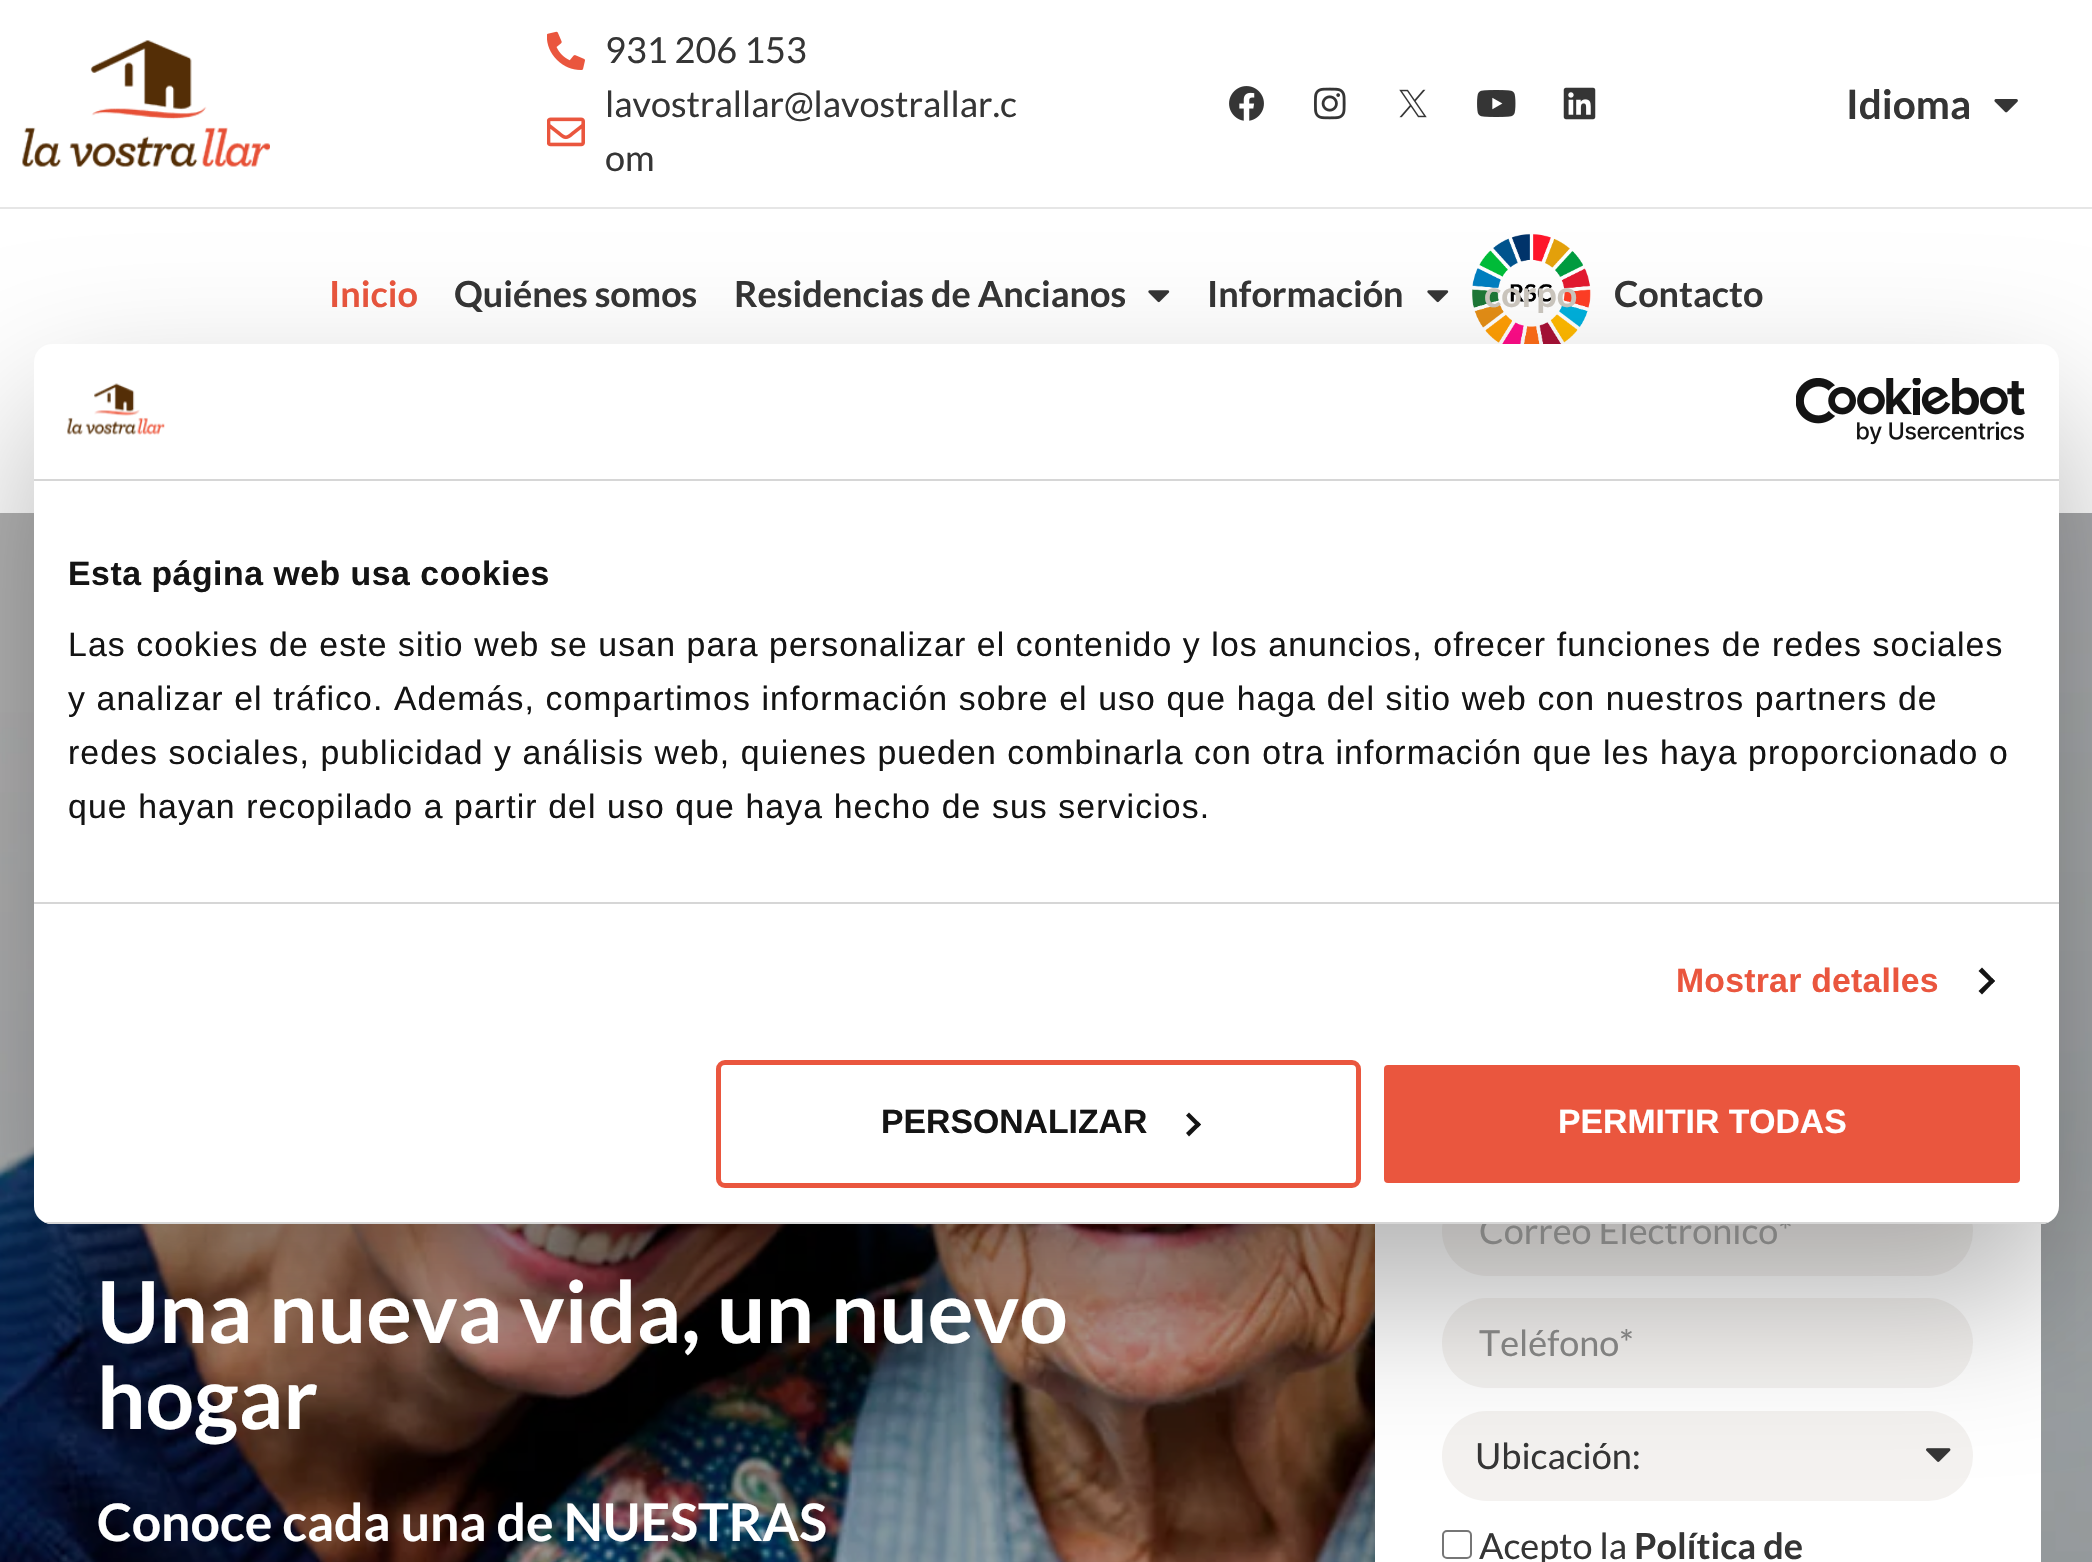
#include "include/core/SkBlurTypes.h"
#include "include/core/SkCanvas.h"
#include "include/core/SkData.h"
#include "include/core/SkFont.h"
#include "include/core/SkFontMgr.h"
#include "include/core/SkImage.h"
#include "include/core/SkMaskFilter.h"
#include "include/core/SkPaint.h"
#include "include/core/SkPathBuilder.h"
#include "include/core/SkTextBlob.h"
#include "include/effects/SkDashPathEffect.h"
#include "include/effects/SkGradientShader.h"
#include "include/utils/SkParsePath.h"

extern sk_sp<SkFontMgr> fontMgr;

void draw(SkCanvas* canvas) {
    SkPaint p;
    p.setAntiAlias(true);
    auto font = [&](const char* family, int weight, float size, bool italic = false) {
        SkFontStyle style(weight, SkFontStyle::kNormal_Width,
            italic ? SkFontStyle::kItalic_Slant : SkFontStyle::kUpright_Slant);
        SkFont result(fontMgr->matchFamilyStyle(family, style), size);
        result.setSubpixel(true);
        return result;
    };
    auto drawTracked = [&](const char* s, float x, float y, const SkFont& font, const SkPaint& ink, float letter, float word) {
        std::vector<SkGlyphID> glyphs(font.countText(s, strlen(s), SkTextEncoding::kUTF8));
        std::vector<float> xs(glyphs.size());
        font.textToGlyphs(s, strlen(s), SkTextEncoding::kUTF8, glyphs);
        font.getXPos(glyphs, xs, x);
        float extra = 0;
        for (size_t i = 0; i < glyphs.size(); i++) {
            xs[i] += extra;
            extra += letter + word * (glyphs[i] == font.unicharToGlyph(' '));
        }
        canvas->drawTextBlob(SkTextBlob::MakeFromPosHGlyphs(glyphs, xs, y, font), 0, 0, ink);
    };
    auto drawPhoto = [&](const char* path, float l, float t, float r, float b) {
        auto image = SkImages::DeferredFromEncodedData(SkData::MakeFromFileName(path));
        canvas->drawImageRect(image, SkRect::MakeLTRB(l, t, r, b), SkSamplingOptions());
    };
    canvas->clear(0xFFFFFFFF);
    drawPhoto("media/1.png", 22, 40, 270, 167);
    drawPhoto("media/2.png", 547, 31, 585, 70);
    auto font1 = font("Lato", 400, 36);
    p.setColor(0xFF353535);
    canvas->drawString("931 206 153", 605, 63, font1, p);
    drawPhoto("media/3.png", 547, 117, 585, 147);
    canvas->drawString("lavostrallar@lavostrallar.c", 605, 117, font1, p);
    canvas->drawString("om", 605, 171, font1, p);
    drawPhoto("media/4.png", 1229, 86, 1264, 121);
    drawPhoto("media/5.png", 1314, 87, 1346, 120);
    drawPhoto("media/6.png", 1399, 89, 1427, 118);
    drawPhoto("media/7.png", 1477, 90, 1516, 117);
    drawPhoto("media/8.png", 1563, 87, 1596, 120);
    auto font2 = font("Lato", 700, 40.5f);
    canvas->drawString("Idioma", 1846, 119, font2, p);
    drawPhoto("media/9.png", 1994, 99, 2018, 113);
    p.setColor(0xFFE6E6E6);
    canvas->drawRect(SkRect::MakeLTRB(0, 207, 2092, 209), p);
    auto font3 = font("Lato", 700, 36);
    p.setColor(0xFFEA563E);
    canvas->drawString("Inicio", 329, 307, font3, p);
    p.setColor(0xFF353535);
    canvas->drawString("Quiénes somos", 454, 307, font3, p);
    canvas->drawString("Residencias de Ancianos", 734, 307, font3, p);
    drawPhoto("media/10.png", 1148, 290, 1170, 303);
    canvas->drawString("Información", 1207, 307, font3, p);
    drawPhoto("media/10.png", 1427, 290, 1449, 303);
    drawPhoto("media/11.png", 1472, 233, 1591, 344);
    p.setColor(0xFFCCC7BF);
    canvas->drawString("corpo", 1484, 307, font3, p);
    p.setColor(0xFF353535);
    canvas->drawString("Contacto", 1614, 307, font3, p);
    drawPhoto("media/14.png", 0, 513, 2092, 1562);
    p.setColor(0xFFFFFFFF);
    canvas->drawRect(SkRect::MakeLTRB(1375, 1224, 2041, 1562), p);
    p.setColor(0xFFF4F2F0);
    canvas->drawRoundRect(SkRect::MakeLTRB(1442, 1186, 1973, 1276), 45, 45, p);
    canvas->drawRoundRect(SkRect::MakeLTRB(1442, 1298, 1973, 1388), 45, 45, p);
    canvas->drawRoundRect(SkRect::MakeLTRB(1442, 1411, 1973, 1501), 45, 45, p);
    drawPhoto("media/15.png", 1926, 1448, 1951, 1462);
    p.setColor(0x4D000000);
    p.setMaskFilter(SkMaskFilter::MakeBlur(kNormal_SkBlurStyle, 76.5f));
    canvas->drawRoundRect(SkRect::MakeLTRB(34, 416, 2059, 1296), 18, 18, p);
    p.setMaskFilter(nullptr);
    p.setColor(0xFF818180);
    canvas->drawString("Correo Electrónico*", 1479, 1244, font1, p);
    p.setColor(0xFFFFFFFF);
    canvas->drawRoundRect(SkRect::MakeLTRB(34, 344, 2059, 1224), 18, 18, p);
    p.setColor(0xFFD6D6D6);
    canvas->drawRect(SkRect::MakeLTRB(34, 479, 2059, 481), p);
    drawPhoto("media/12.png", 67, 383, 165, 435);
    drawPhoto("media/13.png", 1796, 378, 2025, 445);
    canvas->drawRect(SkRect::MakeLTRB(34, 902, 2059, 904), p);
    auto font4 = font("Liberation Sans", 700, 33.75f);
    p.setColor(0xFF141414);
    drawTracked("Esta página web usa cookies", 68, 585, font4, p, 0.55f, 0);
    auto font5 = font("Liberation Sans", 400, 33.75f);
    {
        const struct { const char* s; float x, y; } items[] = {
            {"Las cookies de este sitio web se usan para personalizar el contenido y los anuncios, ofrecer funciones de redes sociales", 68, 656},
            {"y analizar el tráfico. Además, compartimos información sobre el uso que haga del sitio web con nuestros partners de", 68, 710},
            {"redes sociales, publicidad y análisis web, quienes pueden combinarla con otra información que les haya proporcionado o", 68, 764},
            {"que hayan recopilado a partir del uso que haya hecho de sus servicios.", 68, 818},
        };
        for (auto [s, x, y] : items) {
            drawTracked(s, x, y, font5, p, 1.12f, 0);
        }
    }
    p.setColor(0xFFEA563E);
    drawTracked("Mostrar detalles", 1676, 992, font4, p, 0.25f, 0);
    p.setColor(0xFF141414);
    canvas->drawPath(SkPathBuilder().moveTo(1982, 967.5f).lineTo(1995, 981).lineTo(1992, 984).lineTo(1978.5f, 971).close().detach(), p);
    canvas->drawPath(SkPathBuilder().moveTo(1992, 978).lineTo(1995, 981).lineTo(1982, 994.5f).lineTo(1978.5f, 991).close().detach(), p);
    canvas->save();
    canvas->clipPath(SkPathBuilder().moveTo(52, 344).lineTo(2041, 344).cubicTo(2051, 344, 2059, 352, 2059, 362).lineTo(2059, 1206).cubicTo(2059, 1216, 2051, 1224, 2041, 1224).lineTo(52, 1224).cubicTo(42, 1224, 34, 1216, 34, 1206).lineTo(34, 362).cubicTo(34, 352, 42, 344, 52, 344).close().detach(), true);
    p.setColor(0xFFD6D6D6);
    canvas->drawRect(SkRect::MakeLTRB(44, 1222, 2049, 1224), p);
    canvas->restore();
    p.setStyle(SkPaint::kStroke_Style);
    p.setStrokeWidth(5);
    p.setColor(0xFFEA563E);
    canvas->drawRoundRect(SkRect::MakeLTRB(718.5f, 1062.5f, 1358.5f, 1185.5f), 6.5f, 6.5f, p);
    p.setStyle(SkPaint::kFill_Style);
    p.setColor(0xFF141414);
    canvas->drawString("PERSONALIZAR", 881, 1133, font4, p);
    canvas->drawPath(SkPathBuilder().moveTo(1189, 1112.5f).lineTo(1201, 1124.5f).lineTo(1198, 1127.5f).lineTo(1186, 1115.5f).close().detach(), p);
    canvas->drawPath(SkPathBuilder().moveTo(1198, 1121.5f).lineTo(1201, 1124.5f).lineTo(1189, 1136.5f).lineTo(1186, 1133).close().detach(), p);
    p.setColor(0xFFEA563E);
    canvas->drawRoundRect(SkRect::MakeLTRB(1381.5f, 1062.5f, 2022.5f, 1185.5f), 6.5f, 6.5f, p);
    p.setStyle(SkPaint::kStroke_Style);
    p.setColor(0xFFFFFFFF);
    canvas->drawRoundRect(SkRect::MakeLTRB(1381.5f, 1062.5f, 2022.5f, 1185.5f), 6.5f, 6.5f, p);
    p.setStyle(SkPaint::kFill_Style);
    canvas->drawString("PERMITIR TODAS", 1558, 1133, font4, p);
    auto font6 = font("Lato", 700, 85.5f);
    canvas->drawString("Una nueva vida, un nuevo", 97, 1343, font6, p);
    canvas->drawString("hogar", 97, 1429, font6, p);
    auto font7 = font("Lato", 700, 51.75f);
    canvas->drawString("Conoce cada una de NUESTRAS", 97, 1541, font7, p);
    p.setColor(0xFF818180);
    canvas->drawString("Teléfono*", 1479, 1356, font1, p);
    p.setColor(0xFF353535);
    canvas->drawString("Ubicación:", 1475, 1469, font1, p);
    p.setStyle(SkPaint::kStroke_Style);
    p.setStrokeWidth(2);
    p.setColor(0xFF767676);
    canvas->drawRoundRect(SkRect::MakeLTRB(1443, 1531, 1471, 1558), 4, 4, p);
    p.setStyle(SkPaint::kFill_Style);
    p.setColor(0xFF353535);
    canvas->drawString("Acepto la", 1479, 1559, font1, p);
    canvas->drawString("Política de", 1634, 1559, font3, p);
}
